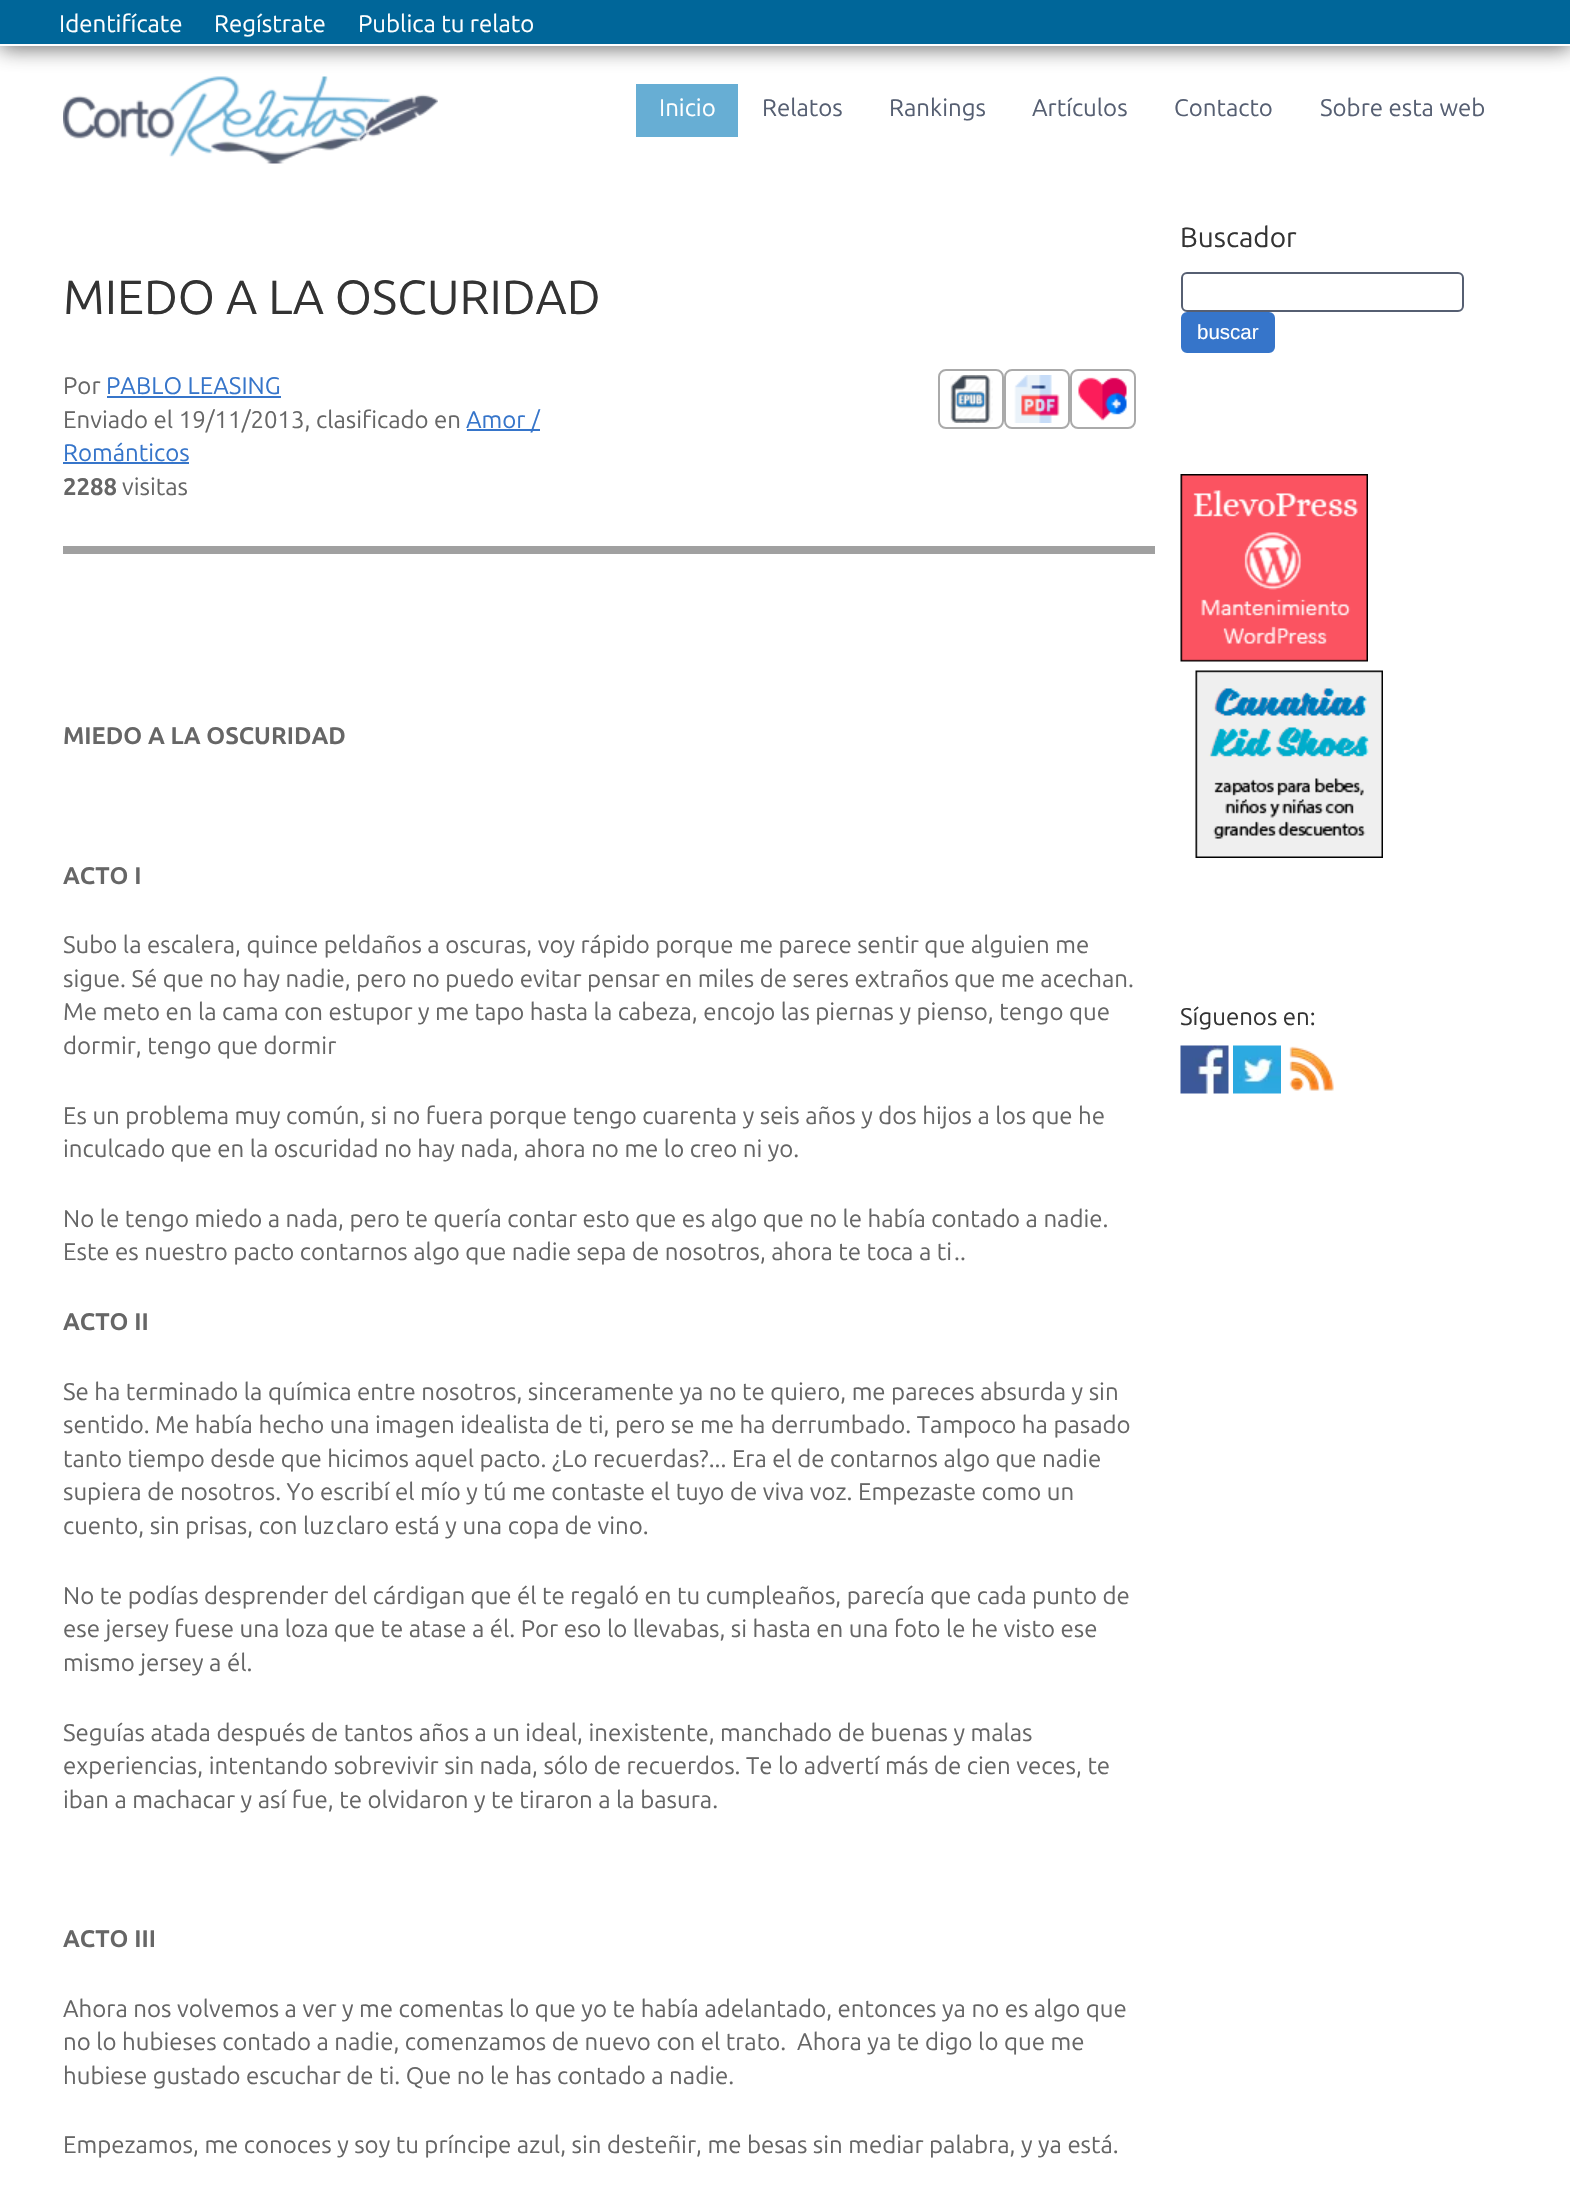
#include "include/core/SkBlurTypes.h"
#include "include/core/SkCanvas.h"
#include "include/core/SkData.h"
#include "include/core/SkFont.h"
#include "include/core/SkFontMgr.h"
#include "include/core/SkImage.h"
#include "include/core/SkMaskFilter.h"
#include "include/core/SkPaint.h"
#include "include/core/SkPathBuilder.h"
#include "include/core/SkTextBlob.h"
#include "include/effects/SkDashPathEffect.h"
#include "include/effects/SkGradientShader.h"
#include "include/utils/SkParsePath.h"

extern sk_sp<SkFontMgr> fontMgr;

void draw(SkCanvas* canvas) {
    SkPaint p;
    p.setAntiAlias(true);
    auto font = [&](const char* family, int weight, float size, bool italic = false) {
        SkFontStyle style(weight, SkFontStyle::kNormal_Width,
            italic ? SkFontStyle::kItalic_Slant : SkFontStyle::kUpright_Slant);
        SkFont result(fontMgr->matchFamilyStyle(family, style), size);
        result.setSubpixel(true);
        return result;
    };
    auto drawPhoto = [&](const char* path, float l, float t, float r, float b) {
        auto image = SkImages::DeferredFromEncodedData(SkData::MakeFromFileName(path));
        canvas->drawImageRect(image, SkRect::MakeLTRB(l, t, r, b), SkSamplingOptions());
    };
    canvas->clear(0xFFFFFFFF);
    drawPhoto("media/1.png", 63, 76, 438, 164);
    p.setColor(0xBF323232);
    p.setMaskFilter(SkMaskFilter::MakeBlur(kNormal_SkBlurStyle, 11));
    canvas->drawRect(SkRect::MakeLTRB(0, 3, 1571, 48), p);
    p.setMaskFilter(nullptr);
    p.setColor(0xFF006699);
    canvas->drawRect(SkRect::MakeLTRB(0, 0, 1570, 44), p);
    p.setColor(0xFFFFFFFF);
    canvas->drawRect(SkRect::MakeLTRB(0, 44, 1570, 46), p);
    auto font1 = font("Ubuntu", 400, 24);
    {
        const struct { const char* s; float x, y; } items[] = {
            {"Identifícate", 59, 32},
            {"Regístrate", 214, 32},
            {"Publica tu relato", 358, 32},
        };
        for (auto [s, x, y] : items) {
            canvas->drawString(s, x, y, font1, p);
        }
    }
    p.setColor(0xFF67AED4);
    canvas->drawRect(SkRect::MakeLTRB(636, 84, 738, 137), p);
    p.setColor(0xFFFFFFFF);
    canvas->drawString("Inicio", 659, 116, font1, p);
    p.setColor(0xFF565F72);
    {
        const struct { const char* s; float x, y; } items[] = {
            {"Relatos", 762, 116},
            {"Rankings", 889, 116},
            {"Artículos", 1032, 116},
            {"Contacto", 1174, 116},
            {"Sobre esta web", 1320, 116},
        };
        for (auto [s, x, y] : items) {
            canvas->drawString(s, x, y, font1, p);
        }
    }
    auto font2 = font("Ubuntu", 400, 48);
    p.setColor(0xFF333333);
    canvas->drawString("MIEDO A LA OSCURIDAD", 63, 314, font2, p);
    p.setColor(0xFF666666);
    canvas->drawString("Por", 63, 394, font1, p);
    p.setColor(0xFF3675CA);
    canvas->drawString("PABLO LEASING", 106, 394, font1, p);
    canvas->drawRect(SkRect::MakeLTRB(107, 396, 281, 398), p);
    p.setColor(0xFF666666);
    canvas->drawString("Enviado el 19/11/2013, clasificado en", 63, 428, font1, p);
    p.setColor(0xFF3675CA);
    canvas->drawRect(SkRect::MakeLTRB(467, 429, 540, 431), p);
    canvas->drawString("Amor /", 466, 428, font1, p);
    canvas->drawString("Románticos", 63, 461, font1, p);
    canvas->drawRect(SkRect::MakeLTRB(63, 462, 189, 464), p);
    auto font3 = font("Ubuntu", 700, 24);
    p.setColor(0xFF666666);
    canvas->drawString("2288", 63, 495, font3, p);
    canvas->drawString("visitas", 122, 495, font1, p);
    p.setStyle(SkPaint::kStroke_Style);
    p.setStrokeWidth(2);
    p.setColor(0xFFAAAAAA);
    canvas->drawRoundRect(SkRect::MakeLTRB(939, 370, 1003, 428), 7, 7, p);
    drawPhoto("media/2.png", 950, 375, 993, 423);
    canvas->drawRoundRect(SkRect::MakeLTRB(1005, 370, 1069, 428), 7, 7, p);
    drawPhoto("media/3.png", 1014, 375, 1060, 423);
    canvas->drawRoundRect(SkRect::MakeLTRB(1071, 370, 1135, 428), 7, 7, p);
    drawPhoto("media/4.png", 1078, 377, 1127, 421);
    p.setStyle(SkPaint::kFill_Style);
    p.setColor(0xFFA0A0A0);
    canvas->drawRect(SkRect::MakeLTRB(63, 546, 1155, 554), p);
    p.setColor(0xFF666666);
    canvas->drawString("MIEDO A LA OSCURIDAD", 63, 744, font3, p);
    canvas->drawString("ACTO I", 63, 884, font3, p);
    {
        const struct { const char* s; float x, y; } items[] = {
            {"Subo la escalera, quince peldaños a oscuras, voy rápido porque me parece sentir que alguien me", 63, 953},
            {"sigue. Sé que no hay nadie, pero no puedo evitar pensar en miles de seres extraños que me acechan.", 63, 987},
            {"Me meto en la cama con estupor y me tapo hasta la cabeza, encojo las piernas y pienso, tengo que", 63, 1020},
            {"dormir, tengo que dormir", 63, 1054},
            {"Es un problema muy común, si no fuera porque tengo cuarenta y seis años y dos hijos a los que he", 63, 1124},
            {"inculcado que en la oscuridad no hay nada, ahora no me lo creo ni yo.", 63, 1157},
            {"No le tengo miedo a nada, pero te quería contar esto que es algo que no le había contado a nadie.", 63, 1227},
            {"Este es nuestro pacto contarnos algo que nadie sepa de nosotros, ahora te toca a ti", 63, 1260},
            {"..", 954, 1260},
        };
        for (auto [s, x, y] : items) {
            canvas->drawString(s, x, y, font1, p);
        }
    }
    canvas->drawString("ACTO II", 63, 1330, font3, p);
    {
        const struct { const char* s; float x, y; } items[] = {
            {"Se ha terminado la química entre nosotros, sinceramente ya no te quiero, me pareces absurda y sin", 63, 1400},
            {"sentido. Me había hecho una imagen idealista de ti, pero se me ha derrumbado. Tampoco ha pasado", 63, 1433},
            {"tanto tiempo desde que hicimos aquel pacto. ¿Lo recuerdas?... Era el de contarnos algo que nadie", 63, 1467},
            {"supiera de nosotros. Yo escribí el mío y tú me contaste el tuyo de viva voz. Empezaste como un", 63, 1500},
            {"cuento, sin prisas, con luz", 63, 1534},
            {"claro está y una copa de vino.", 336, 1534},
            {"No te podías desprender del cárdigan que él te regaló en tu cumpleaños, parecía que cada punto de", 63, 1604},
            {"ese jersey fuese una loza que te atase a él. Por eso lo llevabas, si hasta en una foto le he visto ese", 63, 1637},
            {"mismo jersey a él.", 63, 1671},
            {"Seguías atada después de tantos años a un ideal, inexistente, manchado de buenas y malas", 63, 1741},
            {"experiencias, intentando sobrevivir sin nada, sólo de recuerdos. Te lo advertí más de cien veces, te", 63, 1774},
            {"iban a machacar y así fue, te olvidaron y te tiraron a la basura.", 63, 1808},
        };
        for (auto [s, x, y] : items) {
            canvas->drawString(s, x, y, font1, p);
        }
    }
    canvas->drawString("ACTO III", 63, 1947, font3, p);
    {
        const struct { const char* s; float x, y; } items[] = {
            {"Ahora nos volvemos a ver y me comentas lo que yo te había adelantado, entonces ya no es algo que", 63, 2017},
            {"no lo hubieses contado a nadie, comenzamos de nuevo con el trato.  Ahora ya te digo lo que me", 63, 2050},
            {"hubiese gustado escuchar de ti. Que no le has contado a nadie.", 63, 2084},
            {"Empezamos, me conoces y soy tu príncipe azul, sin desteñir, me besas sin mediar palabra, y ya está.", 63, 2153},
        };
        for (auto [s, x, y] : items) {
            canvas->drawString(s, x, y, font1, p);
        }
    }
    auto font4 = font("Ubuntu", 400, 28);
    p.setColor(0xFF333333);
    canvas->drawString("Buscador", 1180, 247, font4, p);
    p.setStyle(SkPaint::kStroke_Style);
    p.setColor(0xFF565F72);
    canvas->drawRoundRect(SkRect::MakeLTRB(1182, 273, 1463, 311), 5, 5, p);
    p.setStyle(SkPaint::kFill_Style);
    p.setColor(0xFF3675CA);
    canvas->drawRoundRect(SkRect::MakeLTRB(1182, 313, 1274, 352), 5, 5, p);
    p.setStyle(SkPaint::kStroke_Style);
    canvas->drawRoundRect(SkRect::MakeLTRB(1182, 313, 1274, 352), 5, 5, p);
    auto font5 = font("Liberation Sans", 400, 20.5f);
    p.setStyle(SkPaint::kFill_Style);
    p.setColor(0xFFFFFFFF);
    canvas->drawString("buscar", 1197, 339, font5, p);
    drawPhoto("media/5.png", 1180, 474, 1368, 662);
    drawPhoto("media/6.png", 1195, 670, 1383, 858);
    p.setColor(0xFF333333);
    canvas->drawString("Síguenos en:", 1180, 1025, font1, p);
    drawPhoto("media/7.png", 1180, 1045, 1229, 1094);
    drawPhoto("media/8.png", 1233, 1045, 1281, 1094);
    drawPhoto("media/9.png", 1289, 1046, 1334, 1091);
}
